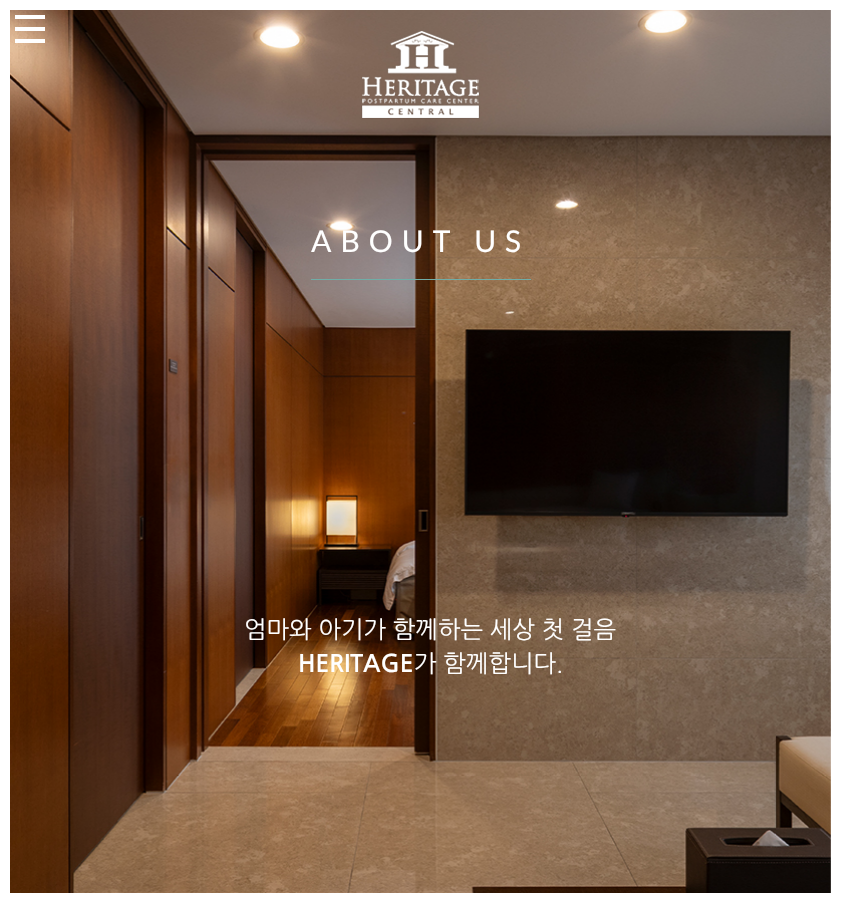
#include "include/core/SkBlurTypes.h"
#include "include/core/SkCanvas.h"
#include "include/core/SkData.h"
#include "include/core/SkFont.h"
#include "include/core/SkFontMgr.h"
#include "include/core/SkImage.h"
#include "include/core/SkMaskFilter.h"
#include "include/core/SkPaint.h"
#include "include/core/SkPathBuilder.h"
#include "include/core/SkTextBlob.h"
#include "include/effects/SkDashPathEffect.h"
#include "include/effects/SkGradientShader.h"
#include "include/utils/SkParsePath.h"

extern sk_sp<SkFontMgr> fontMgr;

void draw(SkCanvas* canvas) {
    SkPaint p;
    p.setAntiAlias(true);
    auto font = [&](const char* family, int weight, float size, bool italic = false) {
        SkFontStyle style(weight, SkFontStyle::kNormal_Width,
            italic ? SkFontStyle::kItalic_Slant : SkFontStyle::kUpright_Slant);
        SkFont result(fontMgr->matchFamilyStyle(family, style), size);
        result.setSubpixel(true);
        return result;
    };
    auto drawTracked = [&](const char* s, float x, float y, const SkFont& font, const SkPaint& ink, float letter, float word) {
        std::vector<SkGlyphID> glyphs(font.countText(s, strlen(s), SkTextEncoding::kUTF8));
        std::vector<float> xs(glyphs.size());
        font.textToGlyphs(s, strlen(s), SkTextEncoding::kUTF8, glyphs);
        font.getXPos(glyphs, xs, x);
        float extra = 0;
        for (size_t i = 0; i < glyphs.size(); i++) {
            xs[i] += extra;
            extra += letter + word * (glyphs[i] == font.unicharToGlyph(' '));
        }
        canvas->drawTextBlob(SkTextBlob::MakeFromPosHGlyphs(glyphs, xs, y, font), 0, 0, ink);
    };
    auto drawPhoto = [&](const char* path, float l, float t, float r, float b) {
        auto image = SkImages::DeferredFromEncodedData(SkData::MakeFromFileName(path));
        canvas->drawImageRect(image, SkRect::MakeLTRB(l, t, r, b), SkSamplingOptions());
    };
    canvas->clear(0xFFFFFFFF);
    drawPhoto("media/3.png", 10, 10, 831, 893);
    drawPhoto("media/1.png", 15, 15, 45, 43);
    drawPhoto("media/2.png", 361, 31, 480, 119);
    p.setColor(0xFF70ADA7);
    canvas->drawRect(SkRect::MakeLTRB(311, 279, 531, 280), p);
    auto font1 = font("Lato", 400, 30);
    p.setColor(0xFFFFFFFF);
    drawTracked("ABOUT US", 311, 252, font1, p, 9, 0);
    auto font2 = font("NanumGothic", 400, 24);
    canvas->drawString("엄마와 아기가 함께하는 세상 첫 걸음", 244, 638, font2, p);
    auto font3 = font("NanumGothic", 700, 24);
    canvas->drawString("HERITAGE", 298, 672, font3, p);
    canvas->drawString("가 함께합니다.", 414, 672, font2, p);
}
